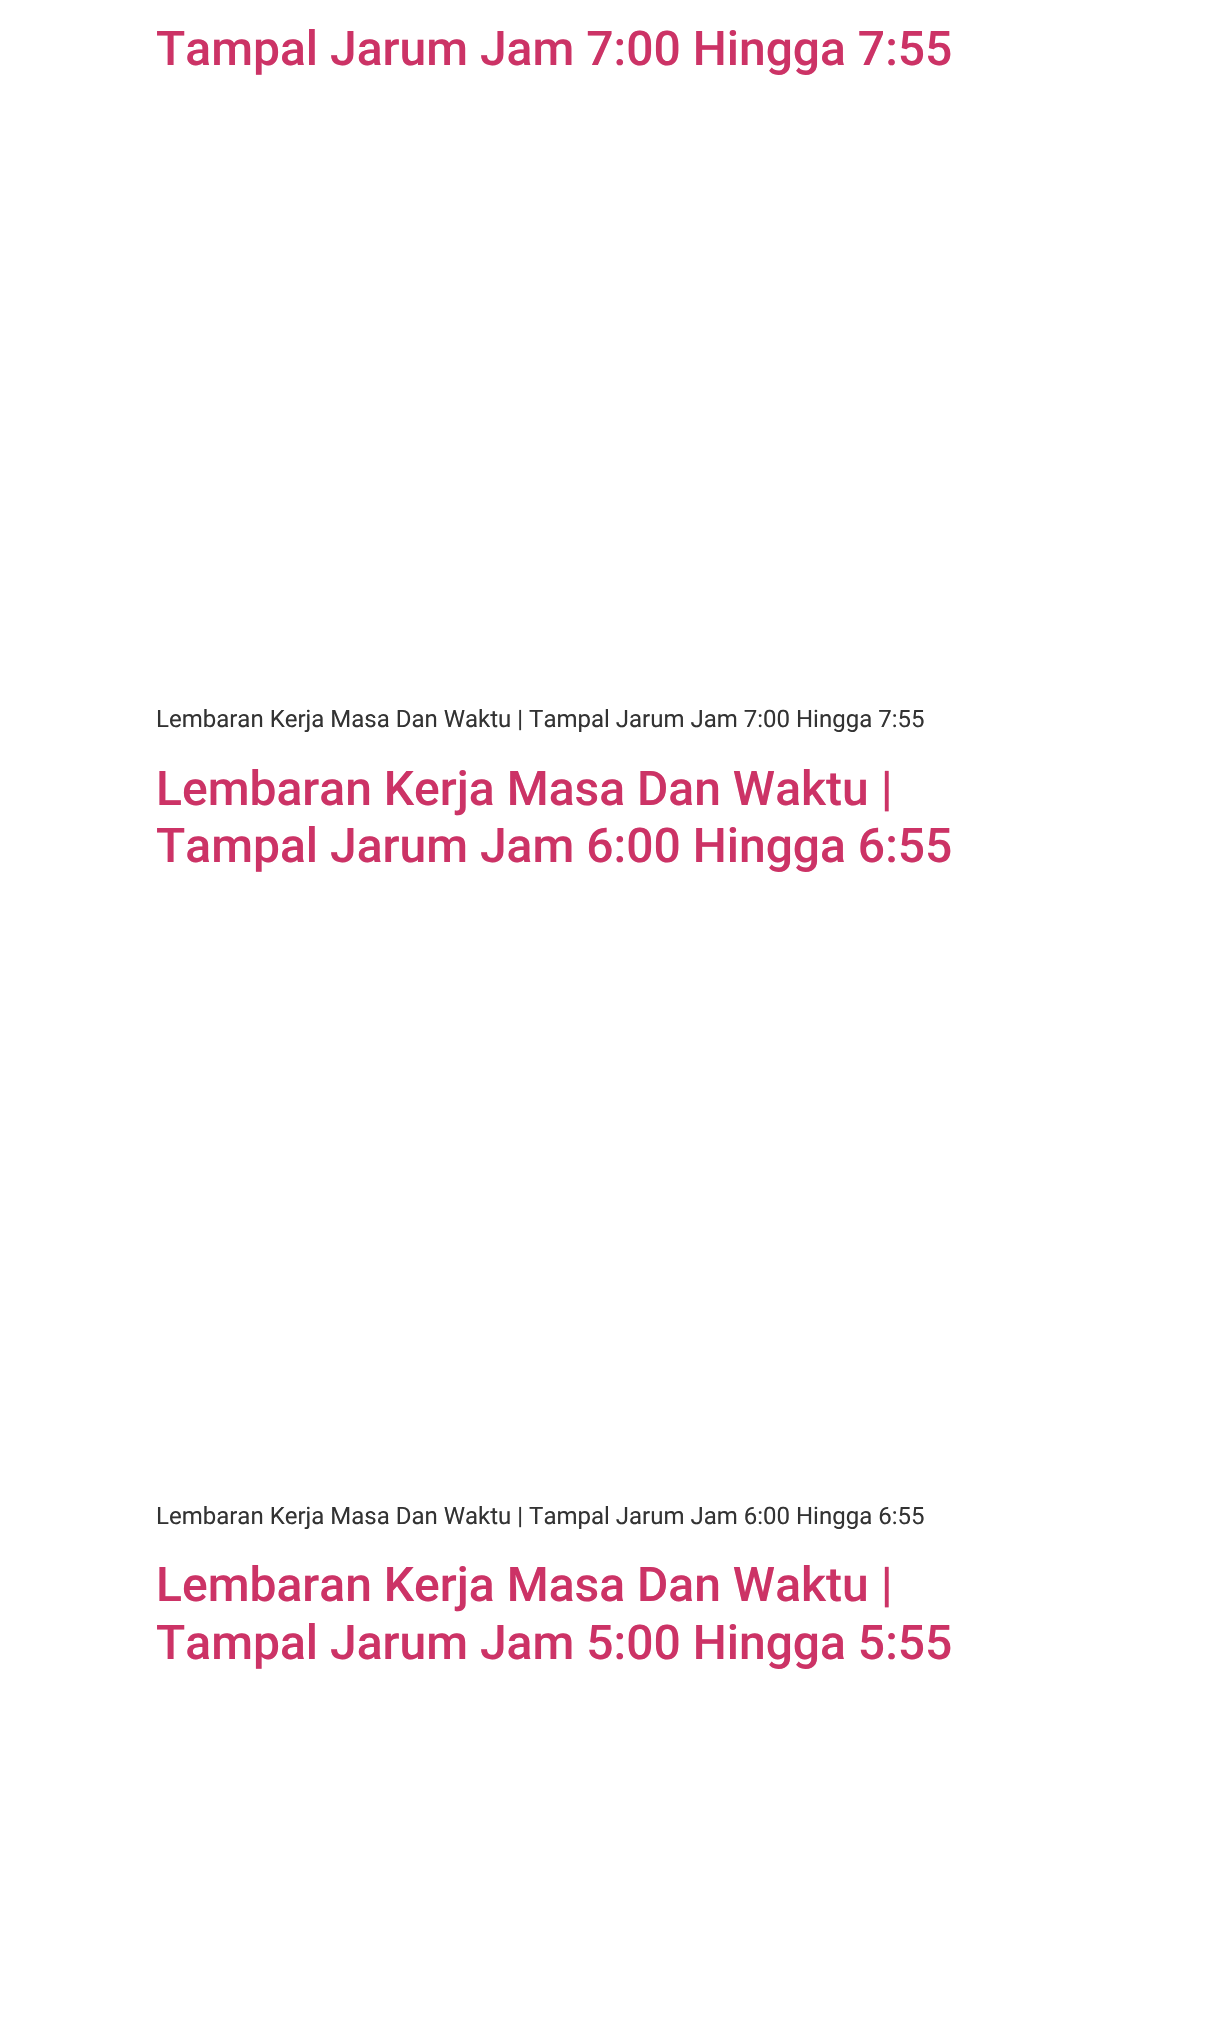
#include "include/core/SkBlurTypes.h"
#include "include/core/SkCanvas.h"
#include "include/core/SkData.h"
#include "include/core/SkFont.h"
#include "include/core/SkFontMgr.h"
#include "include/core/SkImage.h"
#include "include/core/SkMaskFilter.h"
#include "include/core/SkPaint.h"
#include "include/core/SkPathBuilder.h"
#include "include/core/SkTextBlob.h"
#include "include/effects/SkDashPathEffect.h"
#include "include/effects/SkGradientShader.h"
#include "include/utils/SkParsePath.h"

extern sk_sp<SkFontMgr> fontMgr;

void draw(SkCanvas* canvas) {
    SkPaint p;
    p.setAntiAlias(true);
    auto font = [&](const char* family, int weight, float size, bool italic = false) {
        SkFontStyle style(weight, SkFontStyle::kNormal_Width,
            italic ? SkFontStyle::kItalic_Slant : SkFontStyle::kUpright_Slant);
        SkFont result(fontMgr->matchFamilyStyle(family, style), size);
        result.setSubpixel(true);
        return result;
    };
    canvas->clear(0xFFFFFFFF);
    auto font1 = font("Roboto", 500, 48);
    p.setColor(0xFFCC3366);
    canvas->drawString("Tampal Jarum Jam 7:00 Hingga 7:55", 156, 65, font1, p);
    auto font2 = font("Roboto", 400, 24);
    p.setColor(0xFF333333);
    canvas->drawString("Lembaran Kerja Masa Dan Waktu | Tampal Jarum Jam 7:00 Hingga 7:55", 156, 727, font2, p);
    p.setColor(0xFFCC3366);
    canvas->drawString("Lembaran Kerja Masa Dan Waktu |", 156, 805, font1, p);
    canvas->drawString("Tampal Jarum Jam 6:00 Hingga 6:55", 156, 862, font1, p);
    p.setColor(0xFF333333);
    canvas->drawString("Lembaran Kerja Masa Dan Waktu | Tampal Jarum Jam 6:00 Hingga 6:55", 156, 1524, font2, p);
    p.setColor(0xFFCC3366);
    canvas->drawString("Lembaran Kerja Masa Dan Waktu |", 156, 1601, font1, p);
    canvas->drawString("Tampal Jarum Jam 5:00 Hingga 5:55", 156, 1659, font1, p);
}
